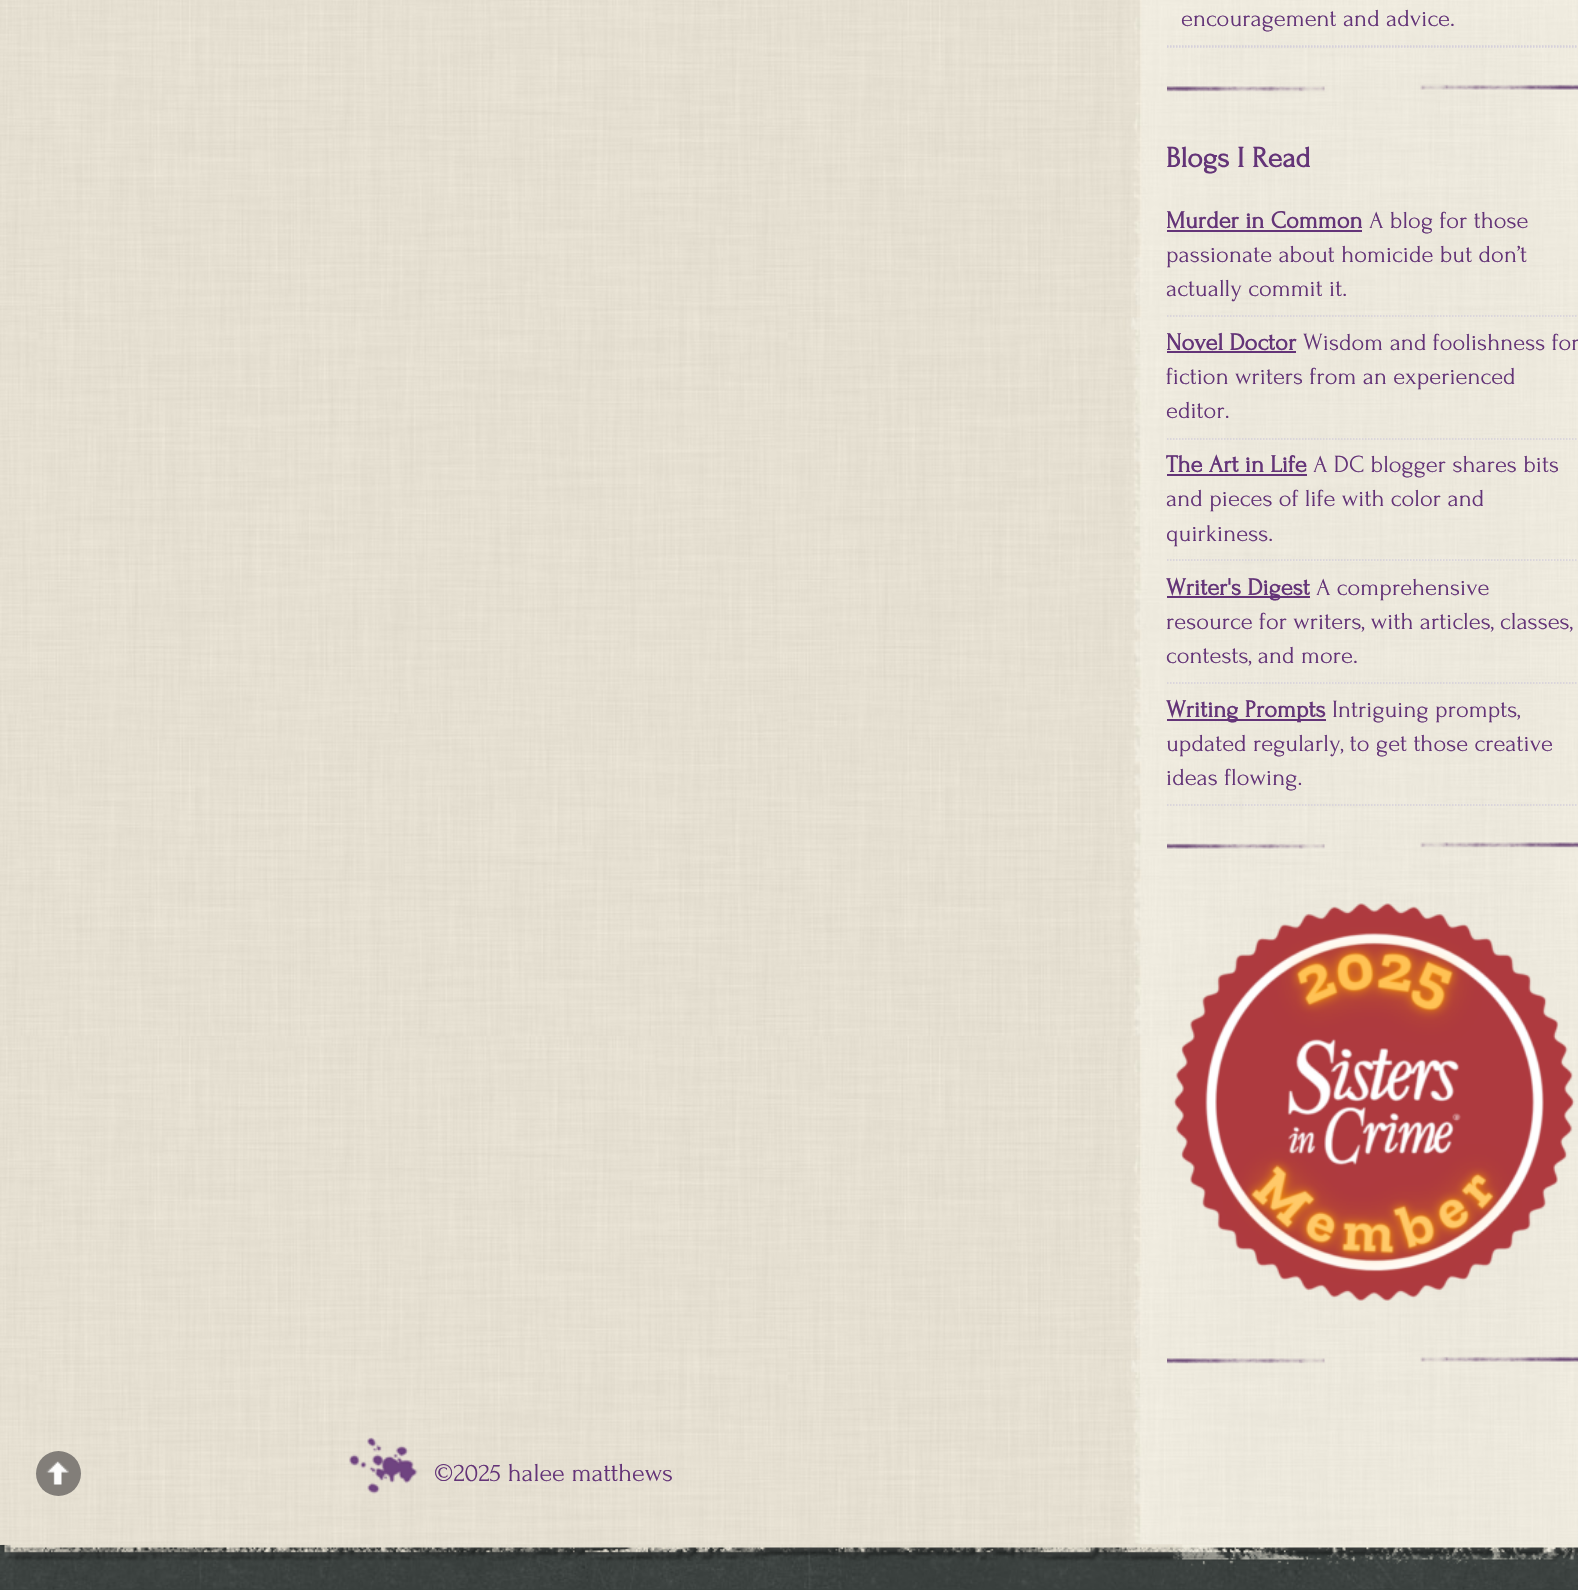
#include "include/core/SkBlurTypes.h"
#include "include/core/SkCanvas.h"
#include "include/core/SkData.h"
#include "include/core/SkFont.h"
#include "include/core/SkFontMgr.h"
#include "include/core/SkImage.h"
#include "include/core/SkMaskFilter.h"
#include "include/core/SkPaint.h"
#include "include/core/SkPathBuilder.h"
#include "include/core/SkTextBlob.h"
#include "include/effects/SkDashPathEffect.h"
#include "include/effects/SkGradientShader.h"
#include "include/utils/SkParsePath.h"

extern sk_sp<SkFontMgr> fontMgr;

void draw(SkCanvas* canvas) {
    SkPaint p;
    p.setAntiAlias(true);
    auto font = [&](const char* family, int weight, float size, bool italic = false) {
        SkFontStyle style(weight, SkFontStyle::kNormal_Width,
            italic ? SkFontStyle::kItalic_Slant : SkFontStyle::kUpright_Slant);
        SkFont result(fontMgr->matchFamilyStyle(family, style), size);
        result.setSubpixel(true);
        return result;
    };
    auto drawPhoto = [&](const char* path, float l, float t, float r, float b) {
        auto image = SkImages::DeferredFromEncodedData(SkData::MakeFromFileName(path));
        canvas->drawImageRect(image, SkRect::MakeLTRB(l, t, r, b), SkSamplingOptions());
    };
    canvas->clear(0xFF38403C);
    drawPhoto("media/1.png", 0, 1545, 1578, 1590);
    p.setColor(0xFFE4DFD0);
    canvas->drawRect(SkRect::MakeLTRB(0, 1544, 1578, 1545), p);
    drawPhoto("media/2.png", 0, 0, 1578, 1545);
    p.setStyle(SkPaint::kStroke_Style);
    p.setStrokeWidth(1.5f);
    p.setColor(0xFFD5D0DB);
    p.setPathEffect(SkDashPathEffect::Make({{1.5f, 1.5f}}, 0));
    canvas->drawPath(SkPathBuilder().moveTo(1167, 47).lineTo(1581, 47).detach(), p);
    p.setPathEffect(nullptr);
    p.setPathEffect(SkDashPathEffect::Make({{1.5f, 1.5f}}, 0));
    canvas->drawPath(SkPathBuilder().moveTo(1167, 46).lineTo(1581, 46).detach(), p);
    p.setPathEffect(nullptr);
    auto font1 = font("Forum", 400, 24.5f);
    p.setStyle(SkPaint::kFill_Style);
    p.setColor(0xFF643478);
    canvas->drawString("encouragement and advice.", 1181, 26, font1, p);
    drawPhoto("media/3.png", 1167, 84, 1578, 92);
    auto font2 = font("Forum", 700, 29.5f);
    canvas->drawString("Blogs I Read", 1166, 167, font2, p);
    p.setStyle(SkPaint::kStroke_Style);
    p.setColor(0xFFD5D0DB);
    p.setPathEffect(SkDashPathEffect::Make({{1.5f, 1.5f}}, 0));
    canvas->drawPath(SkPathBuilder().moveTo(1167, 316).lineTo(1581, 316).detach(), p);
    p.setPathEffect(nullptr);
    auto font3 = font("Forum", 700, 24.5f);
    p.setStyle(SkPaint::kFill_Style);
    p.setColor(0xFF643478);
    canvas->drawString("Murder in Common", 1166, 228, font3, p);
    canvas->drawRect(SkRect::MakeLTRB(1167, 230, 1362, 232), p);
    {
        const struct { const char* s; float x, y; } items[] = {
            {"A blog for those", 1369, 228},
            {"passionate about homicide but don’t", 1166, 262},
            {"actually commit it.", 1166, 296},
        };
        for (auto [s, x, y] : items) {
            canvas->drawString(s, x, y, font1, p);
        }
    }
    p.setStyle(SkPaint::kStroke_Style);
    p.setColor(0xFFD5D0DB);
    p.setPathEffect(SkDashPathEffect::Make({{1.5f, 1.5f}}, 0));
    canvas->drawPath(SkPathBuilder().moveTo(1167, 439).lineTo(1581, 439).detach(), p);
    p.setPathEffect(nullptr);
    p.setStyle(SkPaint::kFill_Style);
    p.setColor(0xFF643478);
    canvas->drawString("Novel Doctor", 1166, 350, font3, p);
    canvas->drawRect(SkRect::MakeLTRB(1167, 351, 1296, 353), p);
    {
        const struct { const char* s; float x, y; } items[] = {
            {"Wisdom and foolishness for", 1303, 350},
            {"fiction writers from an experienced", 1166, 384},
            {"editor.", 1166, 418},
        };
        for (auto [s, x, y] : items) {
            canvas->drawString(s, x, y, font1, p);
        }
    }
    p.setStyle(SkPaint::kStroke_Style);
    p.setColor(0xFFD5D0DB);
    p.setPathEffect(SkDashPathEffect::Make({{1.5f, 1.5f}}, 0));
    canvas->drawPath(SkPathBuilder().moveTo(1167, 560).lineTo(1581, 560).detach(), p);
    p.setPathEffect(nullptr);
    p.setStyle(SkPaint::kFill_Style);
    p.setColor(0xFF643478);
    canvas->drawString("The Art in Life", 1166, 472, font3, p);
    canvas->drawRect(SkRect::MakeLTRB(1167, 474, 1307, 476), p);
    {
        const struct { const char* s; float x, y; } items[] = {
            {"A DC blogger shares bits", 1313, 472},
            {"and pieces of life with color and", 1166, 506},
            {"quirkiness.", 1166, 541},
        };
        for (auto [s, x, y] : items) {
            canvas->drawString(s, x, y, font1, p);
        }
    }
    p.setStyle(SkPaint::kStroke_Style);
    p.setColor(0xFFD5D0DB);
    p.setPathEffect(SkDashPathEffect::Make({{1.5f, 1.5f}}, 0));
    canvas->drawPath(SkPathBuilder().moveTo(1167, 683).lineTo(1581, 683).detach(), p);
    p.setPathEffect(nullptr);
    p.setStyle(SkPaint::kFill_Style);
    p.setColor(0xFF643478);
    canvas->drawRect(SkRect::MakeLTRB(1167, 596, 1310, 598), p);
    canvas->drawString("Writer's Digest", 1166, 595, font3, p);
    {
        const struct { const char* s; float x, y; } items[] = {
            {"A comprehensive", 1316, 595},
            {"resource for writers, with articles, classes,", 1166, 629},
            {"contests, and more.", 1166, 663},
        };
        for (auto [s, x, y] : items) {
            canvas->drawString(s, x, y, font1, p);
        }
    }
    p.setStyle(SkPaint::kStroke_Style);
    p.setColor(0xFFD5D0DB);
    p.setPathEffect(SkDashPathEffect::Make({{1.5f, 1.5f}}, 0));
    canvas->drawPath(SkPathBuilder().moveTo(1167, 805).lineTo(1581, 805).detach(), p);
    p.setPathEffect(nullptr);
    p.setStyle(SkPaint::kFill_Style);
    p.setColor(0xFF643478);
    canvas->drawRect(SkRect::MakeLTRB(1167, 719, 1326, 721), p);
    canvas->drawString("Writing Prompts", 1166, 717, font3, p);
    {
        const struct { const char* s; float x, y; } items[] = {
            {"Intriguing prompts,", 1332, 717},
            {"updated regularly, to get those creative", 1166, 751},
            {"ideas flowing.", 1166, 785},
        };
        for (auto [s, x, y] : items) {
            canvas->drawString(s, x, y, font1, p);
        }
    }
    drawPhoto("media/4.png", 1167, 842, 1578, 849);
    drawPhoto("media/5.png", 1173, 903, 1575, 1301);
    drawPhoto("media/6.png", 1167, 1356, 1578, 1364);
    p.setColor(0xFF827E79);
    canvas->drawCircle(58.5f, 1473.5f, 22.5f, p);
    drawPhoto("media/7.png", 46, 1461, 69, 1485);
    drawPhoto("media/8.png", 349, 1437, 418, 1494);
    auto font4 = font("Forum", 400, 26);
    p.setColor(0xFF643478);
    canvas->drawString("©2025 halee matthews", 434, 1481, font4, p);
    drawPhoto("media/9.png", 0, 1544, 1578, 1566);
}
